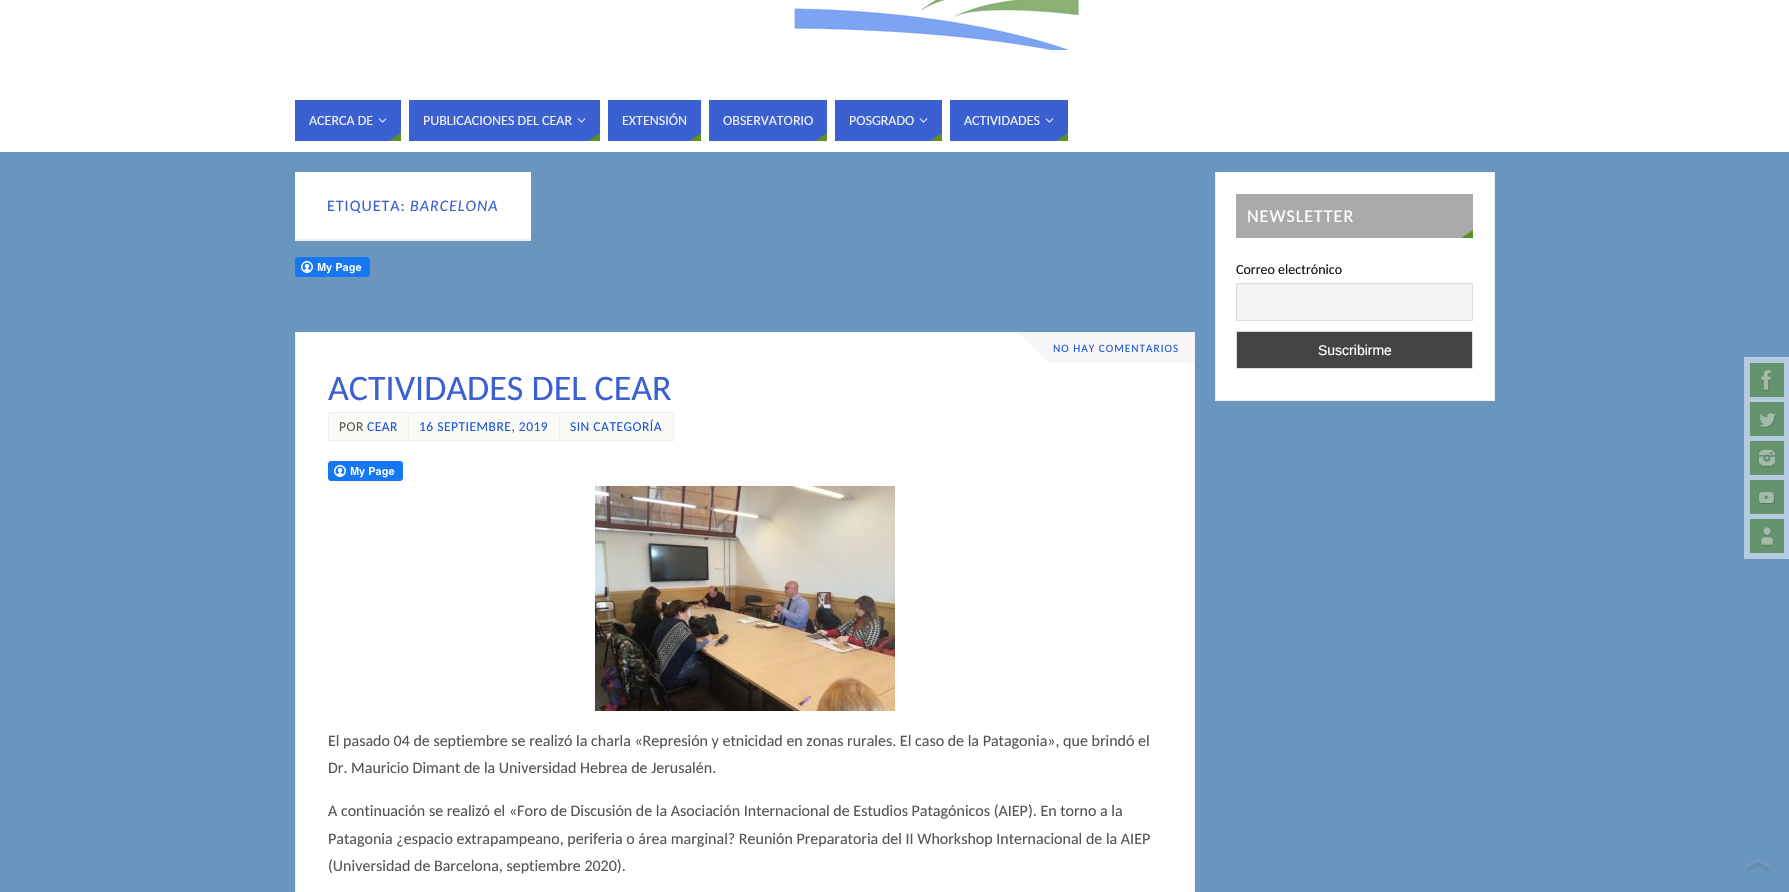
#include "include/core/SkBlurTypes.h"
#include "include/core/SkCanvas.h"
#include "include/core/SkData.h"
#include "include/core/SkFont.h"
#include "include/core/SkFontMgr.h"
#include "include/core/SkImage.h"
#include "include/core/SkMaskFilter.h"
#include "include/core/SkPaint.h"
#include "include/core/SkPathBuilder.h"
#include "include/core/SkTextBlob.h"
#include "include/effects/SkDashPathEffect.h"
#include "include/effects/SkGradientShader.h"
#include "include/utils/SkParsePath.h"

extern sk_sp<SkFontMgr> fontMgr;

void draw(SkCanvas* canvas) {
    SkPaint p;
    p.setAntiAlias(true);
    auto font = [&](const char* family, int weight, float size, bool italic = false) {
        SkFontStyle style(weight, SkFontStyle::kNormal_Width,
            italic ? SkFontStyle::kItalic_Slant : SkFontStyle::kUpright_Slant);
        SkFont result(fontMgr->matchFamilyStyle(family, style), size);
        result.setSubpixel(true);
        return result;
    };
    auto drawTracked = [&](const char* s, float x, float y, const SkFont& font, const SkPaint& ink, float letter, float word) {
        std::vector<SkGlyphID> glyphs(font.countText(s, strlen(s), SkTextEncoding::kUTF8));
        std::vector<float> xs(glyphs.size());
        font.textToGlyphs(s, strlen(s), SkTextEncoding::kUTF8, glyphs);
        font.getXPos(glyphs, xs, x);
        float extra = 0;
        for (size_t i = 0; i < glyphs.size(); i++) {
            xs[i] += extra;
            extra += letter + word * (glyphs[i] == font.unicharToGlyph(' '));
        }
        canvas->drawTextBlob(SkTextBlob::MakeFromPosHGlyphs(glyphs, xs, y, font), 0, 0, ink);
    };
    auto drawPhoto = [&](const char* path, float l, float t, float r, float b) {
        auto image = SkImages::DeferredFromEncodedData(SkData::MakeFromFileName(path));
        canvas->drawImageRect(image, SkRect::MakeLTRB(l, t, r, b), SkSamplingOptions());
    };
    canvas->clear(0xFF6995BF);
    p.setColor(0xFFFFFFFF);
    canvas->drawRect(SkRect::MakeLTRB(0, 0, 1789, 152), p);
    drawPhoto("media/1.png", 791, 0, 1079, 50);
    p.setColor(0xFF3B60D2);
    canvas->drawRect(SkRect::MakeLTRB(295, 100, 401, 141), p);
    auto font1 = font("Carlito", 400, 14);
    p.setColor(0xFFEEEEEE);
    canvas->drawString("ACERCA DE", 309, 125, font1, p);
    drawPhoto("media/2.png", 378, 118, 387, 123);
    p.setColor(0xFF5E911C);
    canvas->drawPath(SkPathBuilder().moveTo(401, 141).lineTo(389, 141).lineTo(401, 133).close().detach(), p);
    p.setColor(0xFF3B60D2);
    canvas->drawRect(SkRect::MakeLTRB(409, 100, 600, 141), p);
    p.setColor(0xFFEEEEEE);
    canvas->drawString("PUBLICACIONES DEL CEAR", 423, 125, font1, p);
    drawPhoto("media/2.png", 577, 118, 586, 123);
    p.setColor(0xFF5E911C);
    canvas->drawPath(SkPathBuilder().moveTo(600, 141).lineTo(588, 141).lineTo(600, 133).close().detach(), p);
    p.setColor(0xFF3B60D2);
    canvas->drawRect(SkRect::MakeLTRB(608, 100, 701, 141), p);
    p.setColor(0xFFEEEEEE);
    canvas->drawString("EXTENSIÓN", 622, 125, font1, p);
    p.setColor(0xFF5E911C);
    canvas->drawPath(SkPathBuilder().moveTo(701, 141).lineTo(689, 141).lineTo(701, 133).close().detach(), p);
    p.setColor(0xFF3B60D2);
    canvas->drawRect(SkRect::MakeLTRB(709, 100, 827, 141), p);
    p.setColor(0xFFEEEEEE);
    canvas->drawString("OBSERVATORIO", 723, 125, font1, p);
    p.setColor(0xFF5E911C);
    canvas->drawPath(SkPathBuilder().moveTo(827, 141).lineTo(815, 141).lineTo(827, 133).close().detach(), p);
    p.setColor(0xFF3B60D2);
    canvas->drawRect(SkRect::MakeLTRB(835, 100, 942, 141), p);
    p.setColor(0xFFEEEEEE);
    canvas->drawString("POSGRADO", 849, 125, font1, p);
    drawPhoto("media/2.png", 919, 118, 928, 123);
    p.setColor(0xFF5E911C);
    canvas->drawPath(SkPathBuilder().moveTo(942, 141).lineTo(930, 141).lineTo(942, 133).close().detach(), p);
    p.setColor(0xFF3B60D2);
    canvas->drawRect(SkRect::MakeLTRB(950, 100, 1068, 141), p);
    p.setColor(0xFFEEEEEE);
    canvas->drawString("ACTIVIDADES", 964, 125, font1, p);
    drawPhoto("media/2.png", 1045, 118, 1054, 123);
    p.setColor(0xFF5E911C);
    canvas->drawPath(SkPathBuilder().moveTo(1068, 141).lineTo(1056, 141).lineTo(1068, 133).close().detach(), p);
    p.setColor(0xFFFFFFFF);
    canvas->drawRect(SkRect::MakeLTRB(295, 172, 531, 239), p);
    p.setColor(0xFFEEEEEE);
    canvas->drawRect(SkRect::MakeLTRB(295, 239, 531, 241), p);
    auto font2 = font("Carlito", 400, 16);
    p.setColor(0xFF3B60D2);
    drawTracked("ETIQUETA:", 327, 211, font2, p, 1, 0);
    auto font3 = font("Carlito", 400, 16, true);
    drawTracked("BARCELONA", 410, 211, font3, p, 1, 0);
    drawPhoto("media/3.png", 295, 257, 370, 277);
    p.setColor(0xFFFFFFFF);
    canvas->drawRect(SkRect::MakeLTRB(295.5f, 332.5f, 1194.5f, 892.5f), p);
    p.setStyle(SkPaint::kStroke_Style);
    p.setStrokeWidth(1);
    p.setColor(0xFFEEEEEE);
    canvas->drawRect(SkRect::MakeLTRB(295.5f, 332.5f, 1194.5f, 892.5f), p);
    p.setStyle(SkPaint::kFill_Style);
    p.setColor(0xFFF7F7F7);
    canvas->drawRect(SkRect::MakeLTRB(1048, 333, 1194, 363), p);
    canvas->drawPath(SkPathBuilder().moveTo(1018, 333).lineTo(1048, 333).lineTo(1048, 363).close().detach(), p);
    auto font4 = font("Carlito", 400, 11.25f);
    p.setColor(0xFF1F57DA);
    drawTracked("NO HAY COMENTARIOS", 1053, 352, font4, p, 1, 0);
    auto font5 = font("Carlito", 400, 36);
    p.setColor(0xFF3B60D2);
    canvas->drawString("ACTIVIDADES DEL CEAR", 328, 400, font5, p);
    p.setColor(0xFFFAFAF7);
    canvas->drawRect(SkRect::MakeLTRB(328.5f, 412.5f, 408.5f, 440.5f), p);
    p.setStyle(SkPaint::kStroke_Style);
    p.setColor(0xFFEEEEEE);
    canvas->drawRect(SkRect::MakeLTRB(328.5f, 412.5f, 408.5f, 440.5f), p);
    auto font6 = font("Carlito", 400, 13.5f);
    p.setStyle(SkPaint::kFill_Style);
    p.setColor(0xFF555555);
    drawTracked("POR", 339, 431, font6, p, 0.5f, 0);
    p.setColor(0xFF1F57DA);
    drawTracked("CEAR", 367, 431, font6, p, 0.5f, 0);
    p.setColor(0xFFFAFAF7);
    canvas->drawRect(SkRect::MakeLTRB(408.5f, 412.5f, 559.5f, 440.5f), p);
    p.setStyle(SkPaint::kStroke_Style);
    p.setColor(0xFFEEEEEE);
    canvas->drawRect(SkRect::MakeLTRB(408.5f, 412.5f, 559.5f, 440.5f), p);
    p.setStyle(SkPaint::kFill_Style);
    p.setColor(0xFF1F57DA);
    drawTracked("16 SEPTIEMBRE, 2019", 419, 431, font6, p, 0.5f, 0);
    p.setColor(0xFFFAFAF7);
    canvas->drawRect(SkRect::MakeLTRB(559.5f, 412.5f, 673.5f, 440.5f), p);
    p.setStyle(SkPaint::kStroke_Style);
    p.setColor(0xFFEEEEEE);
    canvas->drawRect(SkRect::MakeLTRB(559.5f, 412.5f, 673.5f, 440.5f), p);
    p.setStyle(SkPaint::kFill_Style);
    p.setColor(0xFF1F57DA);
    drawTracked("SIN CATEGORÍA", 570, 431, font6, p, 0.5f, 0);
    drawPhoto("media/4.png", 328, 461, 403, 481);
    drawPhoto("media/5.png", 595, 486, 895, 711);
    p.setColor(0xFF555555);
    {
        const struct { const char* s; float x, y; } items[] = {
            {"El pasado 04 de septiembre se realizó la charla «Represión y etnicidad en zonas rurales. El caso de la Patagonia», que brindó el", 328, 746},
            {"Dr. Mauricio Dimant de la Universidad Hebrea de Jerusalén.", 328, 773},
            {"A continuación se realizó el «Foro de Discusión de la Asociación Internacional de Estudios Patagónicos (AIEP). En torno a la", 328, 816},
            {"Patagonia ¿espacio extrapampeano, periferia o área marginal? Reunión Preparatoria del II Whorkshop Internacional de la AIEP", 328, 844},
            {"(Universidad de Barcelona, septiembre 2020).", 328, 871},
        };
        for (auto [s, x, y] : items) {
            canvas->drawString(s, x, y, font2, p);
        }
    }
    p.setColor(0xFFFFFFFF);
    canvas->drawRect(SkRect::MakeLTRB(1215.5f, 172.5f, 1494.5f, 400.5f), p);
    p.setStyle(SkPaint::kStroke_Style);
    p.setColor(0xFFEEEEEE);
    canvas->drawRect(SkRect::MakeLTRB(1215.5f, 172.5f, 1494.5f, 400.5f), p);
    p.setStyle(SkPaint::kFill_Style);
    p.setColor(0xFFAAAAAA);
    canvas->drawRect(SkRect::MakeLTRB(1236, 194, 1473, 238), p);
    auto font7 = font("Carlito", 400, 18);
    p.setColor(0xFFFFFFFF);
    drawTracked("NEWSLETTER", 1247, 222, font7, p, 1, 0);
    p.setColor(0xFF5E911C);
    canvas->drawPath(SkPathBuilder().moveTo(1473, 238).lineTo(1461, 238).lineTo(1473, 230).close().detach(), p);
    p.setColor(0xFF111111);
    canvas->drawString("Correo electrónico", 1236, 274, font1, p);
    p.setColor(0xFFF4F4F4);
    canvas->drawRect(SkRect::MakeLTRB(1236.5f, 283.5f, 1472.5f, 320.5f), p);
    p.setStyle(SkPaint::kStroke_Style);
    p.setColor(0xFFDDDDDD);
    canvas->drawRect(SkRect::MakeLTRB(1236.5f, 283.5f, 1472.5f, 320.5f), p);
    p.setStyle(SkPaint::kFill_Style);
    p.setColor(0xFF444444);
    canvas->drawRect(SkRect::MakeLTRB(1236.5f, 331.5f, 1472.5f, 368.5f), p);
    p.setStyle(SkPaint::kStroke_Style);
    p.setColor(0xFFDDDDDD);
    canvas->drawRect(SkRect::MakeLTRB(1236.5f, 331.5f, 1472.5f, 368.5f), p);
    auto font8 = font("Liberation Sans", 400, 14);
    p.setStyle(SkPaint::kFill_Style);
    p.setColor(0xFFFFFFFF);
    canvas->drawString("Suscribirme", 1318, 355, font8, p);
    p.setColor(0xFFB4CADF);
    canvas->drawRect(SkRect::MakeLTRB(1744, 357, 1789, 559), p);
    p.setColor(0xFF64936E);
    canvas->drawRect(SkRect::MakeLTRB(1750, 363, 1784, 397), p);
    drawPhoto("media/6.png", 1761, 370, 1771, 392);
    canvas->drawRect(SkRect::MakeLTRB(1750, 402, 1784, 436), p);
    drawPhoto("media/7.png", 1759, 413, 1777, 428);
    canvas->drawRect(SkRect::MakeLTRB(1750, 441, 1784, 475), p);
    drawPhoto("media/8.png", 1758, 450, 1776, 468);
    canvas->drawRect(SkRect::MakeLTRB(1750, 480, 1784, 514), p);
    drawPhoto("media/9.png", 1759, 492, 1775, 504);
    canvas->drawRect(SkRect::MakeLTRB(1750, 519, 1784, 553), p);
    drawPhoto("media/10.png", 1760, 527, 1774, 547);
    drawPhoto("media/11.png", 1747, 859, 1769, 872);
}
